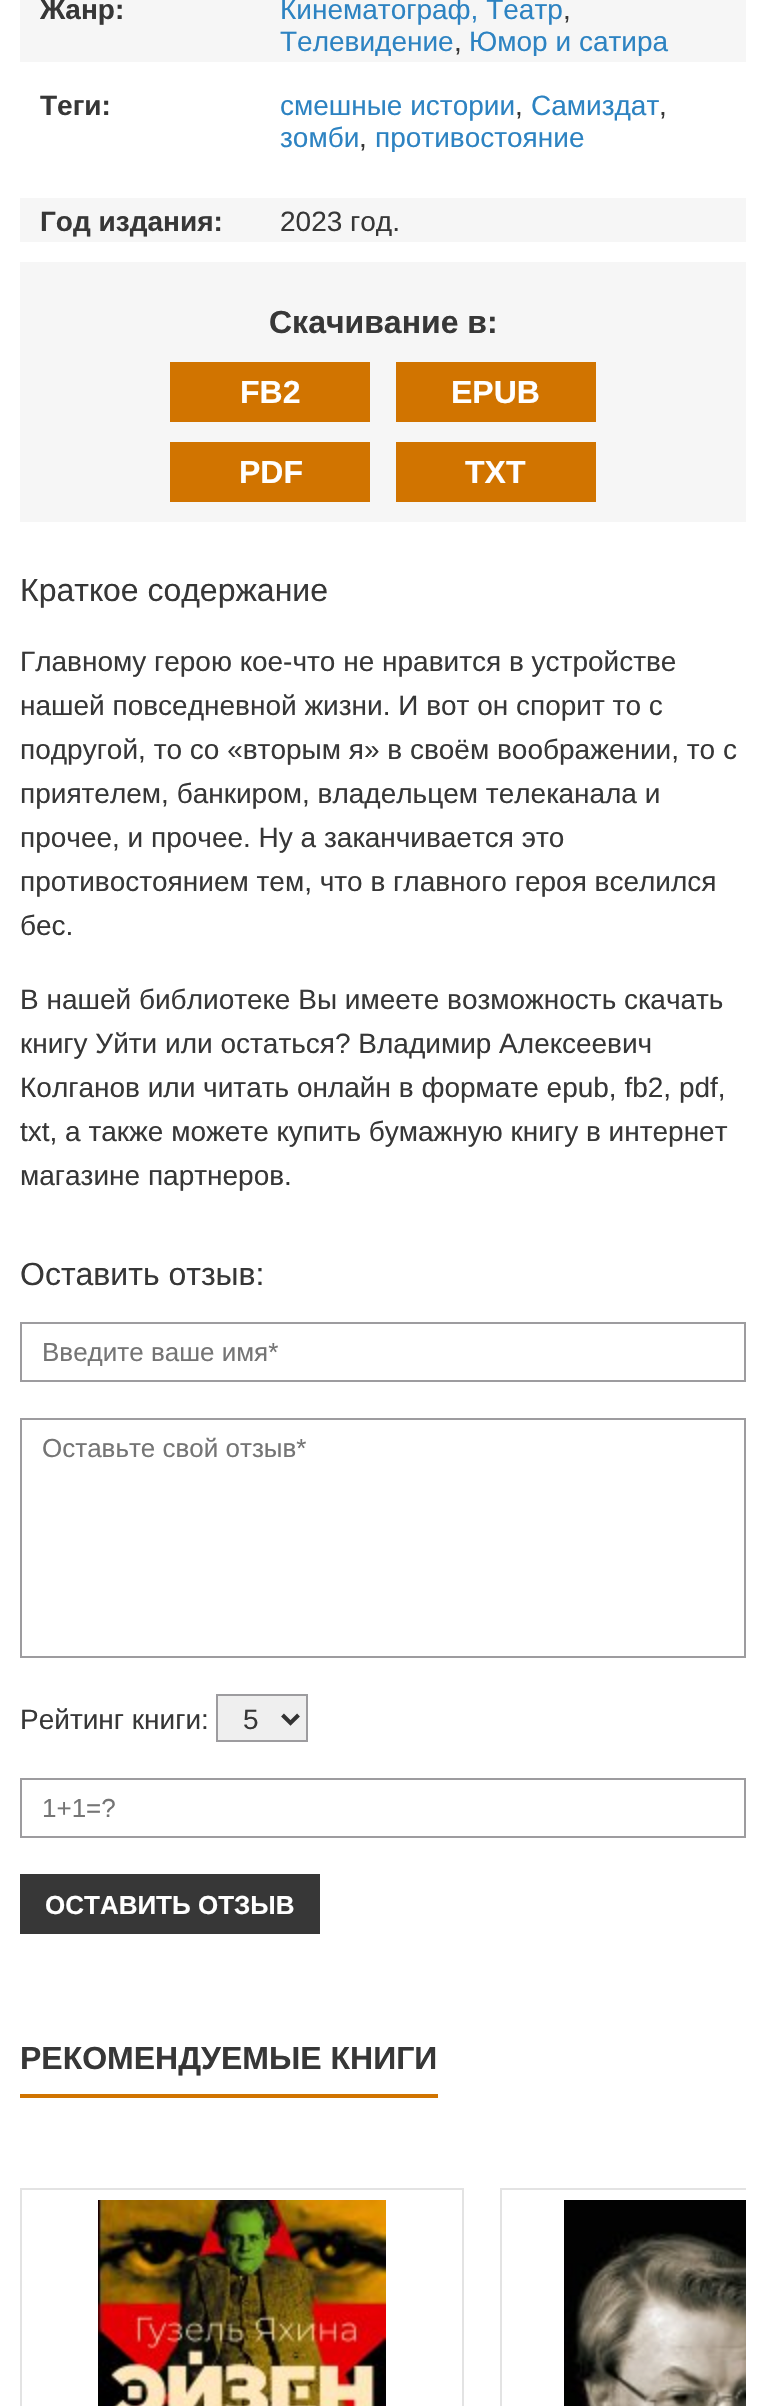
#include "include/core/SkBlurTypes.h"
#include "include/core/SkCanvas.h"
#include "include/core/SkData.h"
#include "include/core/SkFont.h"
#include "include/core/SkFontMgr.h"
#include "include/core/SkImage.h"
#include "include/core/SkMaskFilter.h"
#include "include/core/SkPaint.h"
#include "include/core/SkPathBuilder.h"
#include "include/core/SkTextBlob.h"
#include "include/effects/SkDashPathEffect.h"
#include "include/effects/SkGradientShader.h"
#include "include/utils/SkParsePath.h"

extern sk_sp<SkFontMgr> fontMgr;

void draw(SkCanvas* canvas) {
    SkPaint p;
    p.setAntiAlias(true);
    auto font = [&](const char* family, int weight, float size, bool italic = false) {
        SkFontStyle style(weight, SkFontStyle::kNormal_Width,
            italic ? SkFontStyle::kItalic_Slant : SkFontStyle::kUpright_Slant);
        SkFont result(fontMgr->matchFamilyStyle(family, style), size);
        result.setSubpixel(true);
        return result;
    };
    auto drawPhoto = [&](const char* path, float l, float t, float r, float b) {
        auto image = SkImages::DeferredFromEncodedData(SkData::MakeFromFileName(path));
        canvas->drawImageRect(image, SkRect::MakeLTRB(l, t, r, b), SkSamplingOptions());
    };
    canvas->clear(0xFFFFFFFF);
    p.setColor(0xFFF6F6F6);
    canvas->drawRect(SkRect::MakeLTRB(20, 0, 746, 62), p);
    auto font1 = font("Liberation Sans", 700, 28);
    p.setColor(0xFF373737);
    canvas->drawString("Жанр:", 40, 19, font1, p);
    auto font2 = font("Liberation Sans", 400, 28);
    p.setColor(0xFF2D83C2);
    canvas->drawString("Кинематограф, Театр", 280, 19, font2, p);
    p.setColor(0xFF373737);
    canvas->drawString(",", 563, 19, font2, p);
    canvas->save();
    canvas->clipRect(SkRect::MakeLTRB(280, 0, 726, 56));
    p.setColor(0xFF2D83C2);
    canvas->drawString("Телевидение", 280, 51, font2, p);
    canvas->restore();
    p.setColor(0xFF373737);
    canvas->drawString(",", 454, 51, font2, p);
    canvas->save();
    canvas->clipRect(SkRect::MakeLTRB(280, 0, 726, 56));
    p.setColor(0xFF2D83C2);
    canvas->drawString("Юмор и сатира", 469, 51, font2, p);
    canvas->restore();
    p.setColor(0xFF373737);
    canvas->drawString("Теги:", 40, 115, font1, p);
    p.setColor(0xFF2D83C2);
    canvas->drawString("смешные истории", 280, 115, font2, p);
    p.setColor(0xFF373737);
    canvas->drawString(",", 515, 115, font2, p);
    p.setColor(0xFF2D83C2);
    canvas->drawString("Самиздат", 531, 115, font2, p);
    p.setColor(0xFF373737);
    canvas->drawString(",", 659, 115, font2, p);
    p.setColor(0xFF2D83C2);
    canvas->drawString("зомби", 280, 147, font2, p);
    p.setColor(0xFF373737);
    canvas->drawString(",", 359, 147, font2, p);
    canvas->save();
    canvas->clipRect(SkRect::MakeLTRB(280, 88, 726, 152));
    p.setColor(0xFF2D83C2);
    canvas->drawString("противостояние", 375, 147, font2, p);
    canvas->restore();
    p.setColor(0xFFF6F6F6);
    canvas->drawRect(SkRect::MakeLTRB(20, 198, 746, 242), p);
    p.setColor(0xFF373737);
    canvas->drawString("Год издания:", 40, 231, font1, p);
    canvas->save();
    canvas->clipRect(SkRect::MakeLTRB(280, 204, 726, 236));
    canvas->drawString("2023 год.", 280, 231, font2, p);
    canvas->restore();
    p.setColor(0xFFF6F6F6);
    canvas->drawRect(SkRect::MakeLTRB(20, 262, 746, 522), p);
    auto font3 = font("Liberation Sans", 700, 32);
    p.setColor(0xFF373737);
    canvas->drawString("Скачивание в:", 269, 333, font3, p);
    p.setColor(0xFFD17400);
    canvas->drawRect(SkRect::MakeLTRB(170, 362, 370, 422), p);
    p.setColor(0xFFFFFFFF);
    canvas->drawString("FB2", 240, 403, font3, p);
    p.setColor(0xFFD17400);
    canvas->drawRect(SkRect::MakeLTRB(396, 362, 596, 422), p);
    p.setColor(0xFFFFFFFF);
    canvas->drawString("EPUB", 451, 403, font3, p);
    p.setColor(0xFFD17400);
    canvas->drawRect(SkRect::MakeLTRB(170, 442, 370, 502), p);
    p.setColor(0xFFFFFFFF);
    canvas->drawString("PDF", 239, 483, font3, p);
    p.setColor(0xFFD17400);
    canvas->drawRect(SkRect::MakeLTRB(396, 442, 596, 502), p);
    p.setColor(0xFFFFFFFF);
    canvas->drawString("TXT", 465, 483, font3, p);
    auto font4 = font("Liberation Sans", 400, 32);
    p.setColor(0xFF373737);
    canvas->drawString("Краткое содержание", 20, 601, font4, p);
    {
        const struct { const char* s; float x, y; } items[] = {
            {"Главному герою кое-что не нравится в устройстве", 20, 671},
            {"нашей повседневной жизни. И вот он спорит то с", 20, 715},
            {"подругой, то со «вторым я» в своём воображении, то с", 20, 759},
            {"приятелем, банкиром, владельцем телеканала и", 20, 803},
            {"прочее, и прочее. Ну а заканчивается это", 20, 847},
            {"противостоянием тем, что в главного героя вселился", 20, 891},
            {"бес.", 20, 935},
            {"В нашей библиотеке Вы имеете возможность скачать", 20, 1009},
            {"книгу Уйти или остаться? Владимир Алексеевич", 20, 1053},
            {"Колганов или читать онлайн в формате epub, fb2, pdf,", 20, 1097},
            {"txt, а также можете купить бумажную книгу в интернет", 20, 1141},
            {"магазине партнеров.", 20, 1185},
        };
        for (auto [s, x, y] : items) {
            canvas->drawString(s, x, y, font2, p);
        }
    }
    canvas->drawString("Оставить отзыв:", 20, 1285, font4, p);
    p.setStyle(SkPaint::kStroke_Style);
    p.setStrokeWidth(2);
    p.setColor(0xFF9D9C9F);
    canvas->drawRect(SkRect::MakeLTRB(21, 1323, 745, 1381), p);
    canvas->save();
    canvas->clipRect(SkRect::MakeLTRB(42, 1336, 724, 1366));
    auto font5 = font("Liberation Sans", 400, 26);
    p.setStyle(SkPaint::kFill_Style);
    p.setColor(0xFF757575);
    canvas->drawString("Введите ваше имя*", 42, 1361, font5, p);
    canvas->restore();
    p.setStyle(SkPaint::kStroke_Style);
    p.setColor(0xFF9D9C9F);
    canvas->drawRect(SkRect::MakeLTRB(21, 1419, 745, 1657), p);
    p.setStyle(SkPaint::kFill_Style);
    p.setColor(0xFF757575);
    canvas->drawString("Оставьте свой отзыв*", 42, 1457, font5, p);
    p.setColor(0xFF373737);
    canvas->drawString("Рейтинг книги:", 20, 1729, font2, p);
    p.setColor(0xFFEFEFEF);
    canvas->drawRect(SkRect::MakeLTRB(217, 1695, 307, 1741), p);
    p.setStyle(SkPaint::kStroke_Style);
    p.setColor(0xFF9D9C9F);
    canvas->drawRect(SkRect::MakeLTRB(217, 1695, 307, 1741), p);
    p.setStrokeWidth(4);
    p.setColor(0xFF333333);
    canvas->drawPath(SkPathBuilder().moveTo(282.5f, 1715).lineTo(290.5f, 1723).lineTo(298.5f, 1715).detach(), p);
    p.setStyle(SkPaint::kFill_Style);
    p.setColor(0xFF373737);
    canvas->drawString("5", 243, 1729, font2, p);
    p.setStyle(SkPaint::kStroke_Style);
    p.setStrokeWidth(2);
    p.setColor(0xFF9D9C9F);
    canvas->drawRect(SkRect::MakeLTRB(21, 1779, 745, 1837), p);
    p.setStyle(SkPaint::kFill_Style);
    p.setColor(0xFF757575);
    canvas->drawString("1+1=?", 42, 1817, font5, p);
    p.setColor(0xFF373737);
    canvas->drawRect(SkRect::MakeLTRB(20, 1874, 320, 1934), p);
    auto font6 = font("Liberation Sans", 700, 26);
    p.setColor(0xFFFFFFFF);
    canvas->drawString("ОСТАВИТЬ ОТЗЫВ", 45, 1914, font6, p);
    p.setColor(0xFFD17400);
    canvas->drawRect(SkRect::MakeLTRB(20, 2094, 438, 2098), p);
    p.setColor(0xFF373737);
    canvas->drawString("РЕКОМЕНДУЕМЫЕ КНИГИ", 20, 2069, font3, p);
    p.setStyle(SkPaint::kStroke_Style);
    p.setColor(0xFFE3E3E3);
    canvas->drawRect(SkRect::MakeLTRB(21, 2189, 463, 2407), p);
    drawPhoto("media/1.png", 98, 2200, 386, 2406);
    canvas->save();
    canvas->clipRect(SkRect::MakeLTRB(20, 2188, 746, 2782));
    canvas->drawRect(SkRect::MakeLTRB(501, 2189, 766, 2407), p);
    canvas->restore();
    drawPhoto("media/2.png", 564, 2200, 746, 2406);
}
